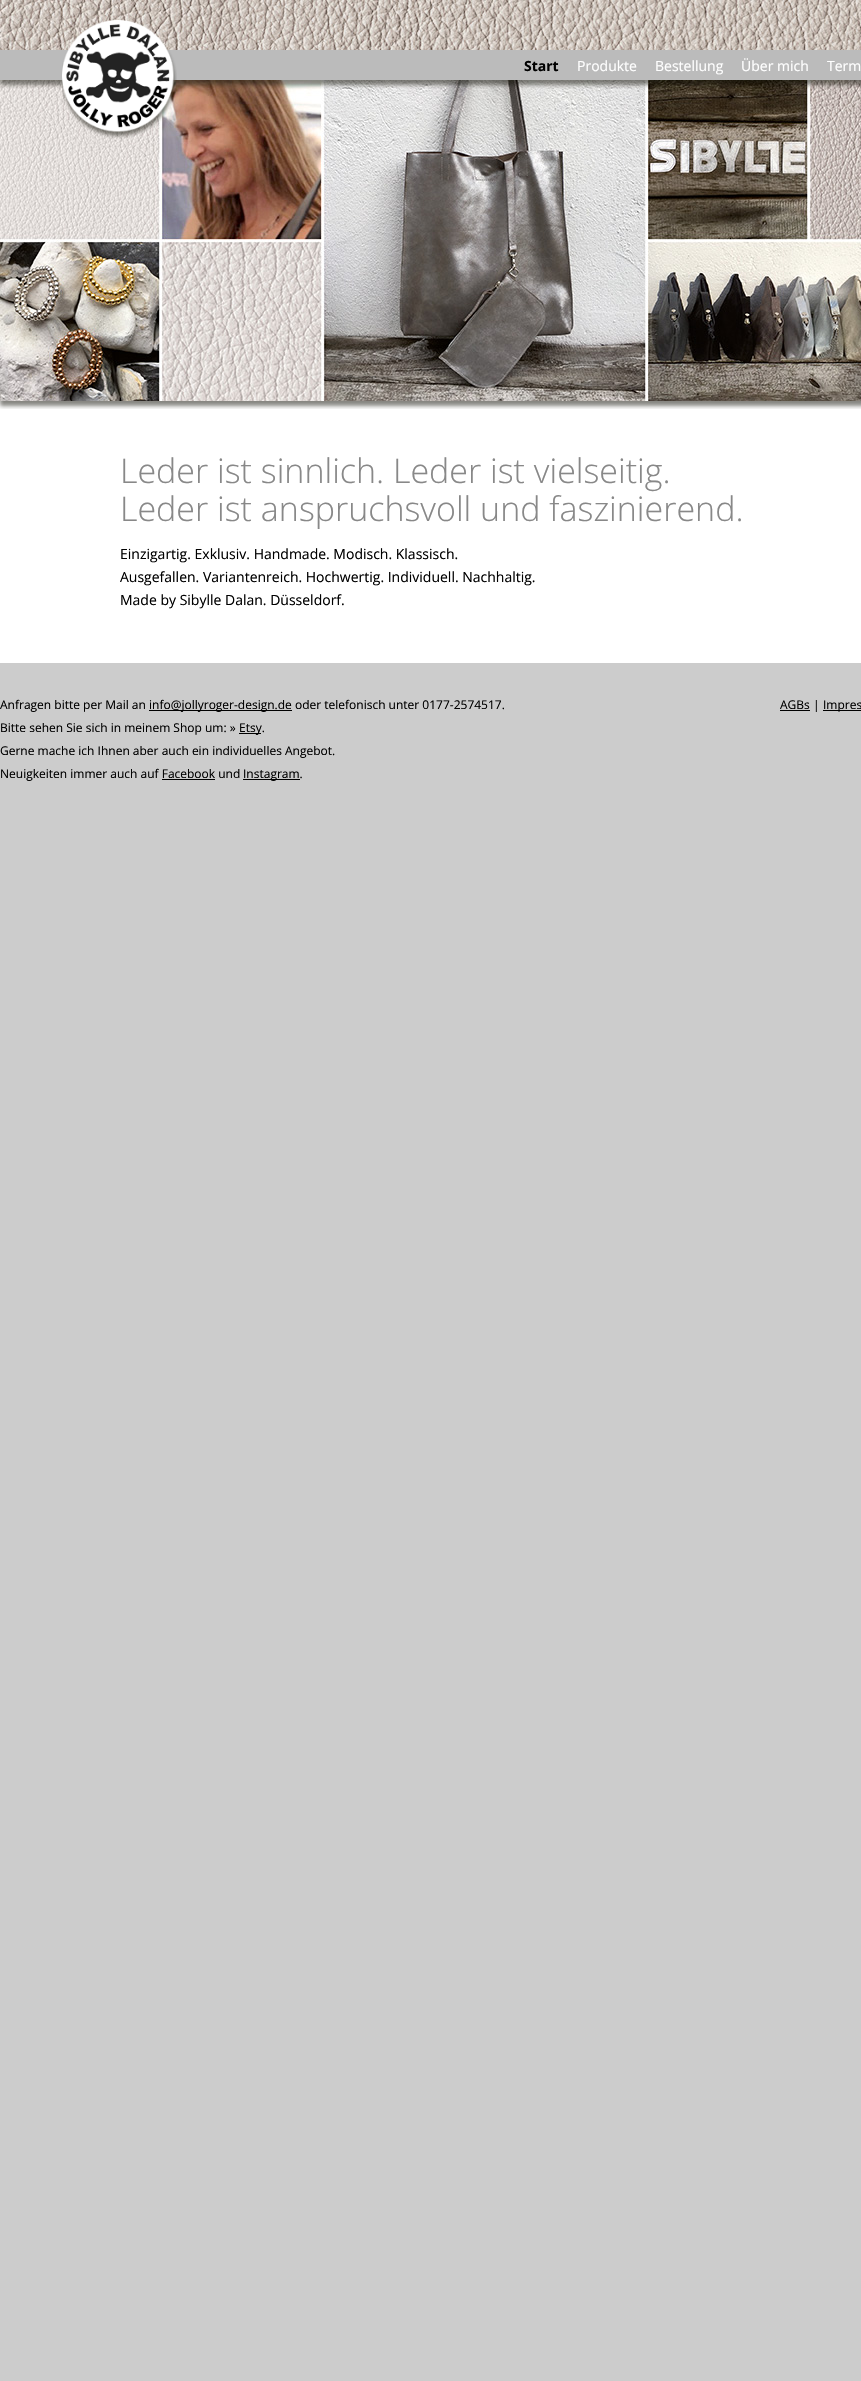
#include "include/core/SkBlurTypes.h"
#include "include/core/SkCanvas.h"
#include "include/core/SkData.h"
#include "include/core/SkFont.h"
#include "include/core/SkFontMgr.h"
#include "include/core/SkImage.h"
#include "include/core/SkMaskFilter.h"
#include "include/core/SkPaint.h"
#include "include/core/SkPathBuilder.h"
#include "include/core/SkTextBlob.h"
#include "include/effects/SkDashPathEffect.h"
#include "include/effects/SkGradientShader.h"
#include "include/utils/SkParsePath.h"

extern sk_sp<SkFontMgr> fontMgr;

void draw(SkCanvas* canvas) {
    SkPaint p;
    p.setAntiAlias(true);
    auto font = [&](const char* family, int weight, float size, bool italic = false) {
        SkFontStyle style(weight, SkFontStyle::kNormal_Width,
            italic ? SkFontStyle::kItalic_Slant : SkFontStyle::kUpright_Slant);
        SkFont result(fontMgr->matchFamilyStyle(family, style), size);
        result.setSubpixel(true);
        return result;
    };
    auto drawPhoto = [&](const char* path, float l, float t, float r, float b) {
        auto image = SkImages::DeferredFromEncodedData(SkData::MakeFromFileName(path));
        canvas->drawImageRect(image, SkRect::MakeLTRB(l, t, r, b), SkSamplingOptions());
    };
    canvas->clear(0xFFCCCCCC);
    p.setColor(0xFFFFFFFF);
    canvas->drawRect(SkRect::MakeLTRB(0, 401, 861, 663), p);
    drawPhoto("media/1.png", 0, 0, 861, 50);
    drawPhoto("media/3.png", 0, 50, 861, 80);
    drawPhoto("media/4.png", 0, 80, 861, 401);
    drawPhoto("media/2.png", 62, 20, 177, 139);
    auto font1 = font("Open Sans", 700, 14);
    p.setColor(0xFF000000);
    canvas->drawString("Start", 524, 71, font1, p);
    auto font2 = font("Open Sans", 400, 14);
    p.setColor(0xFFFFFFFF);
    {
        const struct { const char* s; float x, y; } items[] = {
            {"Produkte", 577, 71},
            {"Bestellung", 655, 71},
            {"Über mich", 741, 71},
            {"Term", 827, 71},
        };
        for (auto [s, x, y] : items) {
            canvas->drawString(s, x, y, font2, p);
        }
    }
    drawPhoto("media/5.png", 0, 401, 861, 409);
    auto font3 = font("Open Sans", 300, 34);
    p.setColor(0xFF888888);
    canvas->drawString("Leder ist sinnlich. Leder ist vielseitig.", 120, 483, font3, p);
    canvas->drawString("Leder ist anspruchsvoll und faszinierend.", 120, 521, font3, p);
    p.setColor(0xFF000000);
    {
        const struct { const char* s; float x, y; } items[] = {
            {"Einzigartig. Exklusiv. Handmade. Modisch. Klassisch.", 120, 559},
            {"Ausgefallen. Variantenreich. Hochwertig. Individuell. Nachhaltig.", 120, 582},
            {"Made by Sibylle Dalan. Düsseldorf.", 120, 605},
        };
        for (auto [s, x, y] : items) {
            canvas->drawString(s, x, y, font2, p);
        }
    }
    auto font4 = font("Open Sans", 400, 12);
    canvas->drawString("Anfragen bitte per Mail an", 0, 709, font4, p);
    canvas->drawRect(SkRect::MakeLTRB(149, 710, 292, 711), p);
    canvas->drawString("info@jollyroger-design.de oder telefonisch unter 0177-2574517.", 149, 709, font4, p);
    canvas->drawString("Bitte sehen Sie sich in meinem Shop um: »", 0, 732, font4, p);
    canvas->drawRect(SkRect::MakeLTRB(239, 733, 261, 734), p);
    {
        const struct { const char* s; float x, y; } items[] = {
            {"Etsy.", 239, 732},
            {"Gerne mache ich Ihnen aber auch ein individuelles Angebot.", 0, 755},
            {"Neuigkeiten immer auch auf Facebook und", 0, 778},
        };
        for (auto [s, x, y] : items) {
            canvas->drawString(s, x, y, font4, p);
        }
    }
    canvas->drawRect(SkRect::MakeLTRB(243, 779, 300, 780), p);
    canvas->drawString("Instagram.", 243, 778, font4, p);
    canvas->drawRect(SkRect::MakeLTRB(162, 779, 215, 780), p);
    canvas->drawRect(SkRect::MakeLTRB(780, 710, 810, 711), p);
    canvas->drawString("AGBs |", 780, 709, font4, p);
    canvas->drawRect(SkRect::MakeLTRB(823, 710, 861, 711), p);
    canvas->drawString("Impres", 823, 709, font4, p);
}
